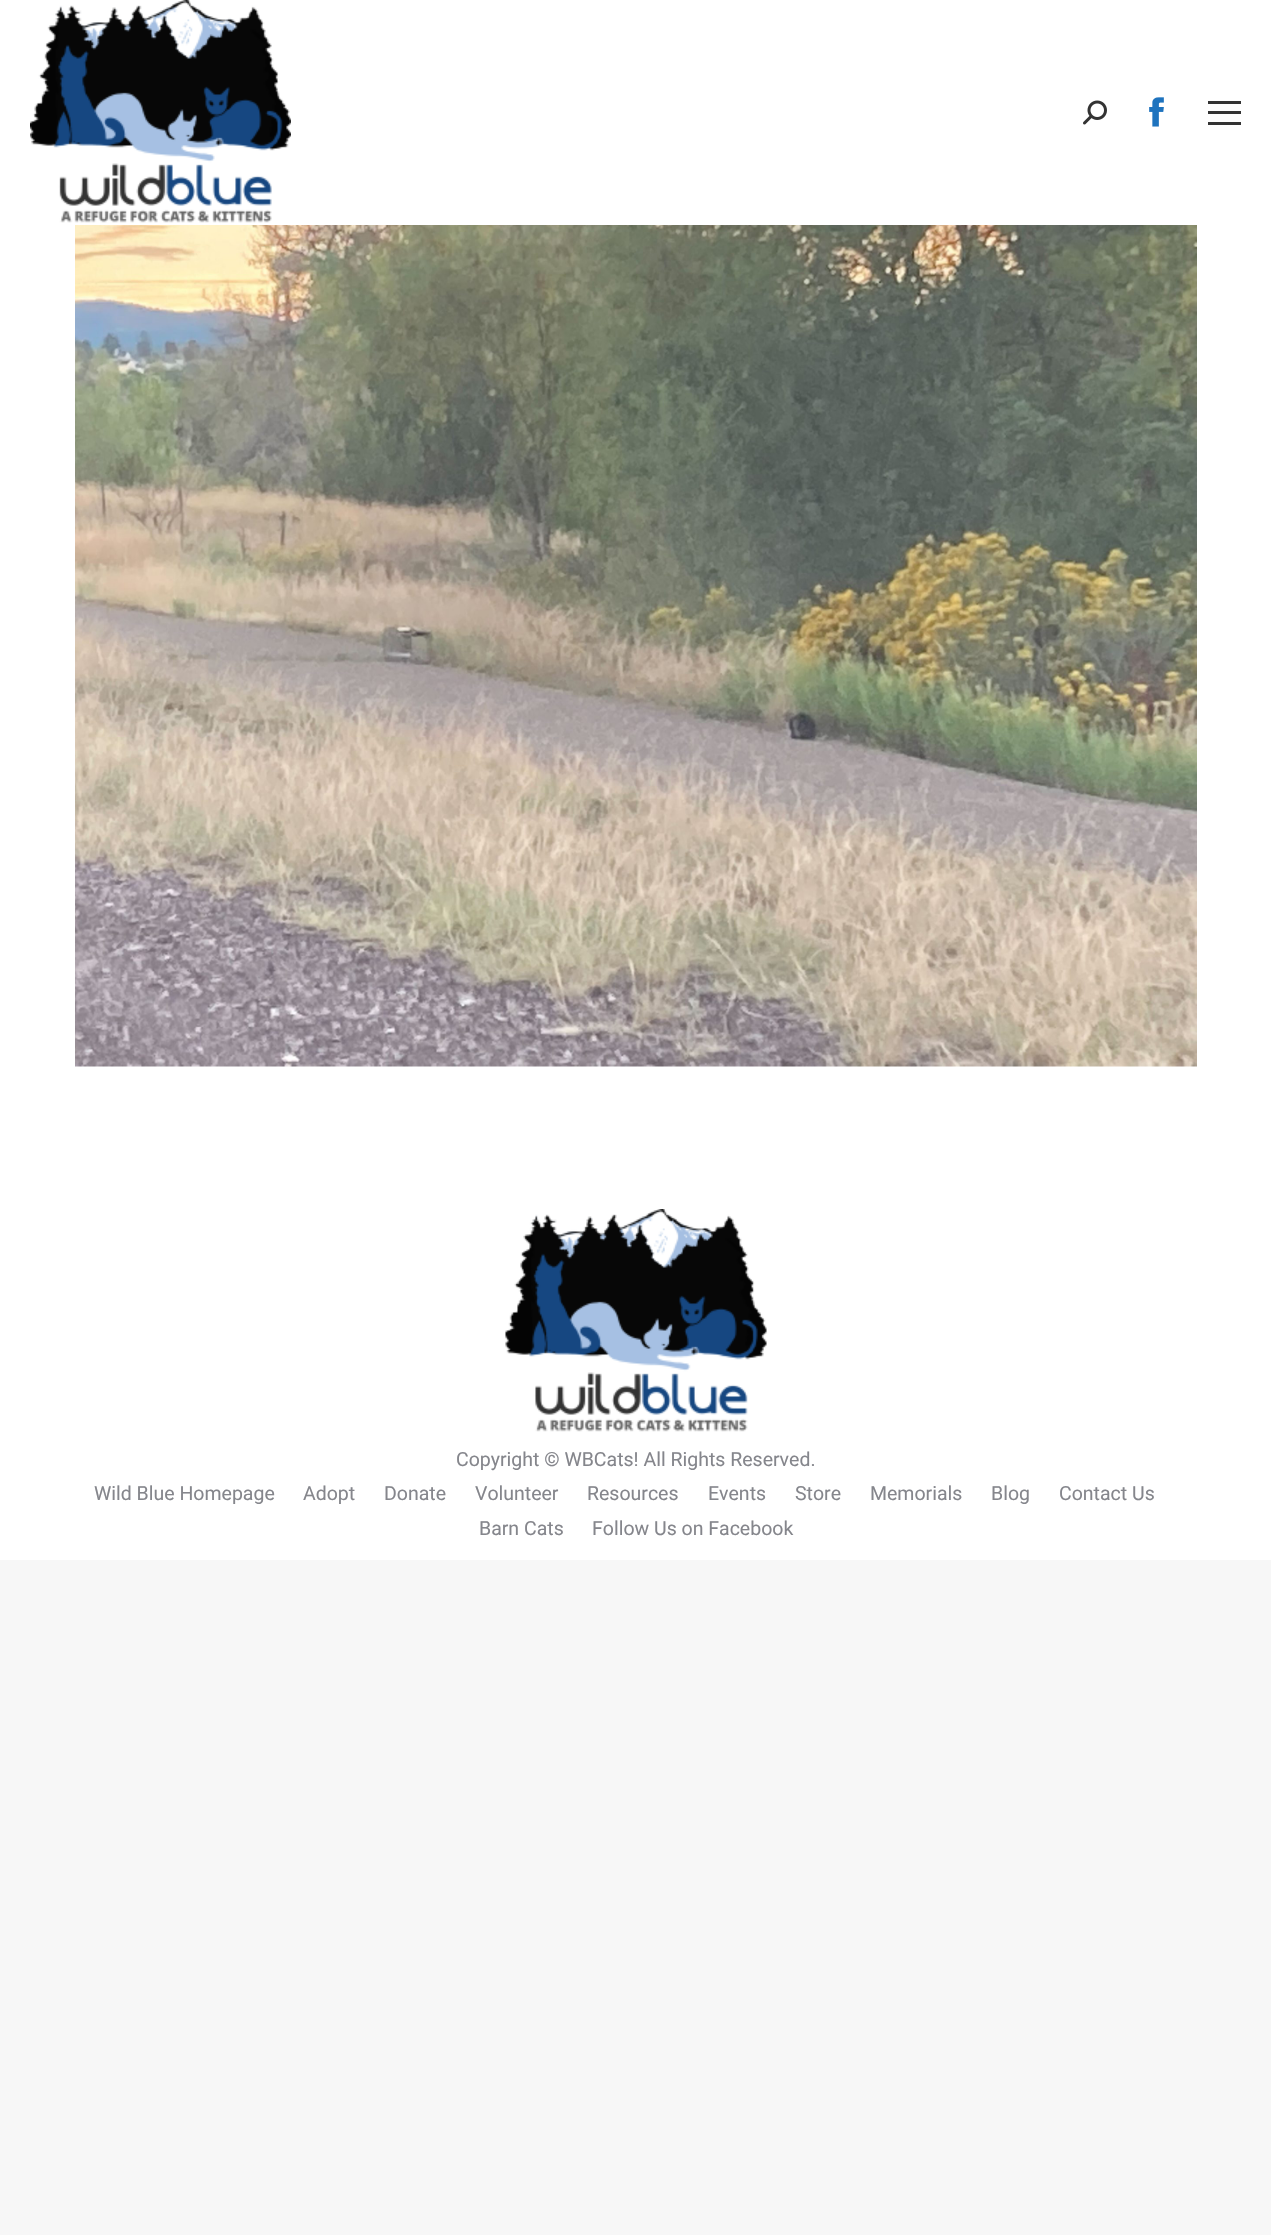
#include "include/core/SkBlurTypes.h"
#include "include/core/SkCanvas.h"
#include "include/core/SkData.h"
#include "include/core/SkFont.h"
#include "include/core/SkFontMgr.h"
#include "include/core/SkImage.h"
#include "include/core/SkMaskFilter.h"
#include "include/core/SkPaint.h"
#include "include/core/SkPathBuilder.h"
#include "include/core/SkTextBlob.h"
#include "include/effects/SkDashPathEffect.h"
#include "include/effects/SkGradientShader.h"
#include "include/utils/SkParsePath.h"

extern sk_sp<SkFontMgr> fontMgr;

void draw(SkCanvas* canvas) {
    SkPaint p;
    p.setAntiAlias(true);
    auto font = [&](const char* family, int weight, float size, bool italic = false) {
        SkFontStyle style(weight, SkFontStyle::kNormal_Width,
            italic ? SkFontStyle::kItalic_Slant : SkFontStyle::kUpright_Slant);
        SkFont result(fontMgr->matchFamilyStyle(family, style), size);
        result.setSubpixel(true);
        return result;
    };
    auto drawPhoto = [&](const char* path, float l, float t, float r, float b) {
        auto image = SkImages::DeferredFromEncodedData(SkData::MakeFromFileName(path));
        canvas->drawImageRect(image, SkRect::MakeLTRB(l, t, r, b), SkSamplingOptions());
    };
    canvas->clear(0xFFF7F7F7);
    p.setColor(0xFFFFFFFF);
    canvas->drawRect(SkRect::MakeLTRB(0, 0, 1271, 1560), p);
    drawPhoto("media/1.png", 30, 0, 291, 223);
    drawPhoto("media/2.png", 1083, 100, 1107, 125);
    drawPhoto("media/3.png", 1149, 97, 1164, 127);
    {
        const struct { float l, t, r, b; SkColor color; } items[] = {
            {1208, 101, 1241, 104, 0xFF333333},
            {1208, 111, 1241, 114, 0xFF333333},
            {1208, 122, 1241, 125, 0xFF333333},
        };
        for (auto [l, t, r, b, color] : items) {
            p.setColor(color);
            canvas->drawRect(SkRect::MakeLTRB(l, t, r, b), p);
        }
    }
    drawPhoto("media/4.png", 75, 225, 1197, 1067);
    drawPhoto("media/5.png", 505, 1209, 767, 1432);
    auto font1 = font("Roboto", 400, 19.5f);
    p.setColor(0xFF85868C);
    {
        const struct { const char* s; float x, y; } items[] = {
            {"Copyright © WBCats! All Rights Reserved.", 456, 1466},
            {"Wild Blue Homepage", 94, 1500},
            {"Adopt", 303, 1500},
            {"Donate", 384, 1500},
            {"Volunteer", 475, 1500},
            {"Resources", 587, 1500},
            {"Events", 708, 1500},
            {"Store", 795, 1500},
            {"Memorials", 870, 1500},
            {"Blog", 991, 1500},
            {"Contact Us", 1059, 1500},
            {"Barn Cats", 479, 1535},
            {"Follow Us on Facebook", 592, 1535},
        };
        for (auto [s, x, y] : items) {
            canvas->drawString(s, x, y, font1, p);
        }
    }
}
